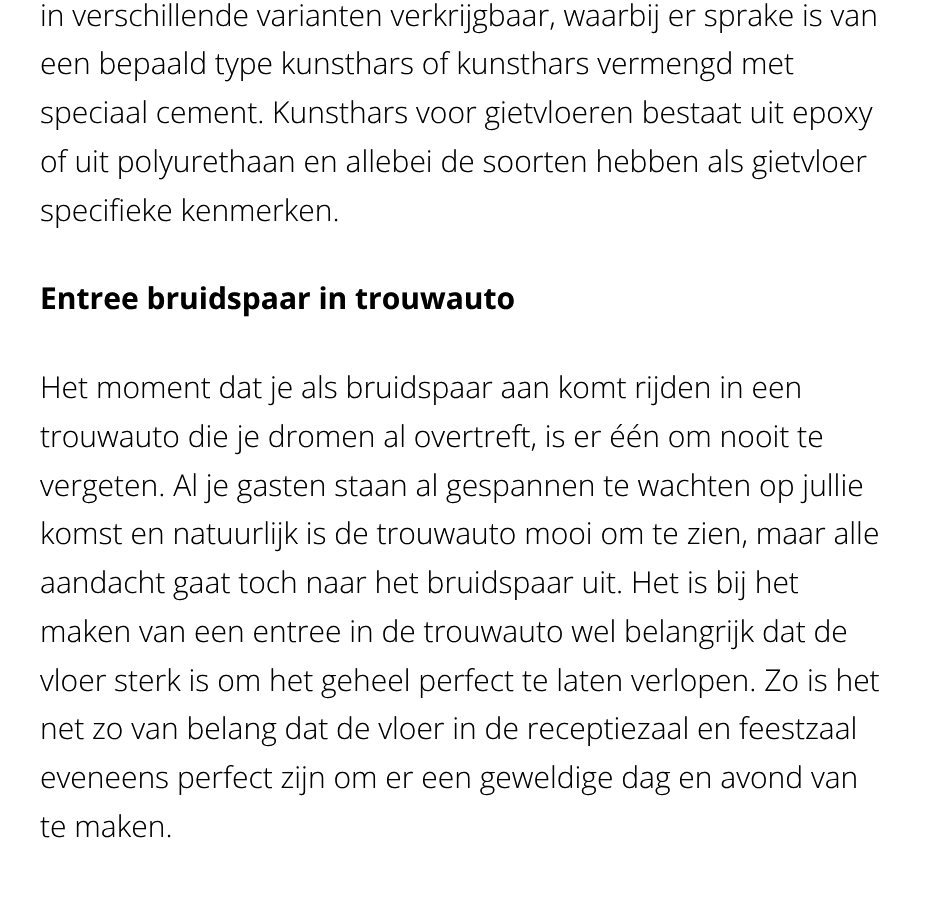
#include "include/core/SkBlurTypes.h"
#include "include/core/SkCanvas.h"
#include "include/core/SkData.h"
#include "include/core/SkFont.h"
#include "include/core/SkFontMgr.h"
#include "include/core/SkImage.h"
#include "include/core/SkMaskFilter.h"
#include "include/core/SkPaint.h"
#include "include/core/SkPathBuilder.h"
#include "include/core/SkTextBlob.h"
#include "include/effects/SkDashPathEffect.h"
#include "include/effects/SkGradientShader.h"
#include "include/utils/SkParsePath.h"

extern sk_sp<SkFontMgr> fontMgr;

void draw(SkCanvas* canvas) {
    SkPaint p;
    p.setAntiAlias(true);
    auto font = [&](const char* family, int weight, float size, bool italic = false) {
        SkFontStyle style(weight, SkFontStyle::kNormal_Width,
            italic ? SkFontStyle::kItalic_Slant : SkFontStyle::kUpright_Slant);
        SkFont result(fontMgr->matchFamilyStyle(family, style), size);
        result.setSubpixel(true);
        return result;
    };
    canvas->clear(0xFFFFFFFF);
    auto font1 = font("Open Sans", 300, 30);
    p.setColor(0xFF000000);
    {
        const struct { const char* s; float x, y; } items[] = {
            {"in verschillende varianten verkrijgbaar, waarbij er sprake is van", 40, 26},
            {"een bepaald type kunsthars of kunsthars vermengd met", 40, 74},
            {"speciaal cement. Kunsthars voor gietvloeren bestaat uit epoxy", 40, 123},
            {"of uit polyurethaan en allebei de soorten hebben als gietvloer", 40, 172},
            {"specifieke kenmerken.", 40, 221},
        };
        for (auto [s, x, y] : items) {
            canvas->drawString(s, x, y, font1, p);
        }
    }
    auto font2 = font("Open Sans", 700, 30);
    canvas->drawString("Entree bruidspaar in trouwauto", 40, 309, font2, p);
    {
        const struct { const char* s; float x, y; } items[] = {
            {"Het moment dat je als bruidspaar aan komt rijden in een", 40, 398},
            {"trouwauto die je dromen al overtreft, is er één om nooit te", 40, 447},
            {"vergeten. Al je gasten staan al gespannen te wachten op jullie", 40, 496},
            {"komst en natuurlijk is de trouwauto mooi om te zien, maar alle", 40, 544},
            {"aandacht gaat toch naar het bruidspaar uit. Het is bij het", 40, 593},
            {"maken van een entree in de trouwauto wel belangrijk dat de", 40, 642},
            {"vloer sterk is om het geheel perfect te laten verlopen. Zo is het", 40, 691},
            {"net zo van belang dat de vloer in de receptiezaal en feestzaal", 40, 739},
            {"eveneens perfect zijn om er een geweldige dag en avond van", 40, 788},
            {"te maken.", 40, 837},
        };
        for (auto [s, x, y] : items) {
            canvas->drawString(s, x, y, font1, p);
        }
    }
}
